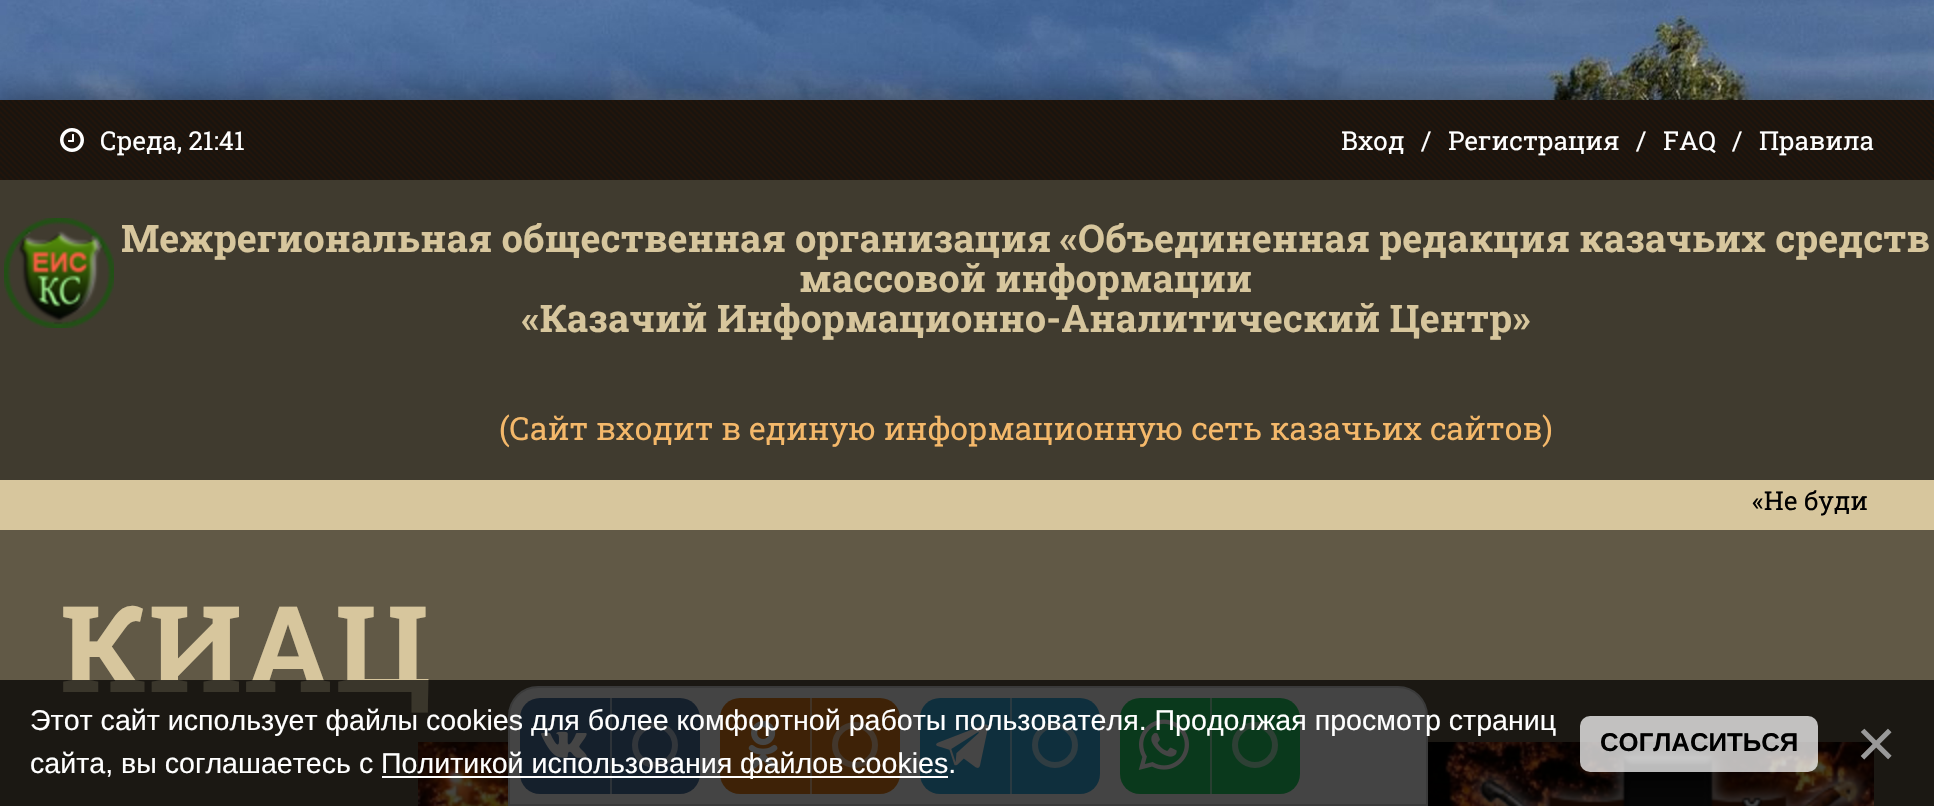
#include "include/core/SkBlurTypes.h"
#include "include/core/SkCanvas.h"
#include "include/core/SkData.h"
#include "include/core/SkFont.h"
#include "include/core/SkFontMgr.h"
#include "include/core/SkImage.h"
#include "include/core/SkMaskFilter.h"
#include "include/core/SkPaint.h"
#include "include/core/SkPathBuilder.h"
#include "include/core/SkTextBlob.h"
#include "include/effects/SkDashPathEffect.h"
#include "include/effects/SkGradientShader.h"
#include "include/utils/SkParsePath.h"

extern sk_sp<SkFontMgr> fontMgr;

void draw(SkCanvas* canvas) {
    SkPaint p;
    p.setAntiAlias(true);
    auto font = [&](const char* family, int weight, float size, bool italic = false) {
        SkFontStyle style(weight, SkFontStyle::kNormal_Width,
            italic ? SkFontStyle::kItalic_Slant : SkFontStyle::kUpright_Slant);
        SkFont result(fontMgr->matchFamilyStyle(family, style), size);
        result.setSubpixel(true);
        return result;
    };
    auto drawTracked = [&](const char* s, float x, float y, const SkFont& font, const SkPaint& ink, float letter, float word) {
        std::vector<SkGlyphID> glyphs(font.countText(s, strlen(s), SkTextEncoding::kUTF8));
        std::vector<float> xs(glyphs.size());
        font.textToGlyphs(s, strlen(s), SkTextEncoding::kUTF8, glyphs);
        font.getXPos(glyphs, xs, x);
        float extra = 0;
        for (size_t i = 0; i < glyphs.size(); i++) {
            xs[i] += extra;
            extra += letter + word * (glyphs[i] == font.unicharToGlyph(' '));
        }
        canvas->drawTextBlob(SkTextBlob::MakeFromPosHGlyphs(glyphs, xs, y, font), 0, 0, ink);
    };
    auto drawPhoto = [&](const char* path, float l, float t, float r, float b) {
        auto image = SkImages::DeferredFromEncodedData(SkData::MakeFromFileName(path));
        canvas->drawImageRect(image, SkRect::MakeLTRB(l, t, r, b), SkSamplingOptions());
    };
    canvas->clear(0xFFFFFFFF);
    drawPhoto("media/1.png", 0, 0, 1934, 100);
    p.setColor(0x80000000);
    p.setMaskFilter(SkMaskFilter::MakeBlur(kNormal_SkBlurStyle, 20));
    canvas->drawRect(SkRect::MakeLTRB(0, 100, 1934, 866), p);
    p.setMaskFilter(nullptr);
    p.setColor(0xFFD7C69D);
    canvas->drawRect(SkRect::MakeLTRB(0, 480, 1934, 530), p);
    p.setColor(0xFF161410);
    canvas->drawRect(SkRect::MakeLTRB(0, 100, 1934, 180), p);
    drawPhoto("media/2.png", 0, 100, 1934, 180);
    drawPhoto("media/3.png", 60, 128, 84, 152);
    auto font1 = font("Roboto Slab", 400, 26);
    p.setColor(0xFFFFFFFF);
    {
        const struct { const char* s; float x, y; } items[] = {
            {"Среда, 21:41", 100, 150},
            {"Вход", 1341, 150},
            {"/", 1421, 150},
            {"Регистрация", 1448, 150},
            {"/", 1636, 150},
            {"FAQ", 1663, 150},
            {"/", 1732, 150},
            {"Правила", 1759, 150},
        };
        for (auto [s, x, y] : items) {
            canvas->drawString(s, x, y, font1, p);
        }
    }
    p.setColor(0xFF403B2F);
    canvas->drawRect(SkRect::MakeLTRB(0, 180, 1934, 376), p);
    drawPhoto("media/4.png", 4, 218, 114, 328);
    auto font2 = font("Roboto Slab", 700, 38);
    p.setColor(0xFFD7C69D);
    {
        const struct { const char* s; float x, y; } items[] = {
            {"Межрегиональная общественная организация «Объединенная редакция казачьих средств", 121, 252},
            {"массовой информации", 799, 292},
            {"«Казачий Информационно-Аналитический Центр»", 522, 332},
        };
        for (auto [s, x, y] : items) {
            canvas->drawString(s, x, y, font2, p);
        }
    }
    p.setColor(0xFF403B2F);
    canvas->drawRect(SkRect::MakeLTRB(0, 376, 1934, 480), p);
    auto font3 = font("Roboto Slab", 400, 32);
    p.setColor(0xFFF4B86A);
    canvas->drawString("(Сайт входит в единую информационную сеть казачьих сайтов)", 499, 440, font3, p);
    p.setColor(0xFF000000);
    canvas->drawString("«Не буди", 1752, 510, font1, p);
    p.setColor(0xFF615946);
    canvas->drawRect(SkRect::MakeLTRB(0, 530, 1934, 806), p);
    auto font4 = font("Roboto Slab", 700, 120);
    p.setColor(0xFFD7C69D);
    drawTracked("КИАЦ", 60, 692, font4, p, 2, 0);
    drawPhoto("media/5.png", 418, 742, 1874, 806);
    p.setColor(0xFFFAFAFA);
    canvas->drawPath(SkPathBuilder().moveTo(538, 687).lineTo(1398, 687).cubicTo(1414, 687, 1427, 700, 1427, 716).lineTo(1427, 805).lineTo(509, 805).lineTo(509, 716).cubicTo(509, 700, 522, 687, 538, 687).close().detach(), p);
    p.setStyle(SkPaint::kStroke_Style);
    p.setStrokeWidth(2);
    p.setColor(0xFFD4D4D4);
    canvas->drawPath(SkPathBuilder().moveTo(538, 687).lineTo(1398, 687).cubicTo(1414, 687, 1427, 700, 1427, 716).lineTo(1427, 805).lineTo(509, 805).lineTo(509, 716).cubicTo(509, 700, 522, 687, 538, 687).close().detach(), p);
    p.setStyle(SkPaint::kFill_Style);
    p.setColor(0xFF4D75A3);
    canvas->drawRoundRect(SkRect::MakeLTRB(520, 698, 700, 794), 20, 20, p);
    drawPhoto("media/6.png", 541, 731, 587, 758);
    p.setColor(0xFFA6BAD1);
    canvas->drawRect(SkRect::MakeLTRB(610, 698, 612, 794), p);
    p.setStyle(SkPaint::kStroke_Style);
    p.setStrokeWidth(6);
    p.setColor(0xFFB8C8DA);
    canvas->drawCircle(655, 745, 20, p);
    p.setStyle(SkPaint::kFill_Style);
    p.setColor(0xFFE67E17);
    canvas->drawRoundRect(SkRect::MakeLTRB(720, 698, 900, 794), 20, 20, p);
    drawPhoto("media/7.png", 748, 721, 778, 769);
    p.setColor(0xFFF3BF8B);
    canvas->drawRect(SkRect::MakeLTRB(810, 698, 812, 794), p);
    p.setStyle(SkPaint::kStroke_Style);
    p.setColor(0xFFF5CBA2);
    canvas->drawCircle(855, 745, 20, p);
    p.setStyle(SkPaint::kFill_Style);
    p.setColor(0xFF37AEE2);
    canvas->drawRoundRect(SkRect::MakeLTRB(920, 698, 1100, 794), 20, 20, p);
    drawPhoto("media/8.png", 936, 724, 988, 768);
    p.setColor(0xFF9BD7F1);
    canvas->drawRect(SkRect::MakeLTRB(1010, 698, 1012, 794), p);
    p.setStyle(SkPaint::kStroke_Style);
    p.setColor(0xFFAFDFF3);
    canvas->drawCircle(1055, 745, 20, p);
    p.setStyle(SkPaint::kFill_Style);
    p.setColor(0xFF25D366);
    canvas->drawRoundRect(SkRect::MakeLTRB(1120, 698, 1300, 794), 20, 20, p);
    drawPhoto("media/9.png", 1138, 719, 1189, 770);
    p.setColor(0xFF92E9B3);
    canvas->drawRect(SkRect::MakeLTRB(1210, 698, 1212, 794), p);
    p.setStyle(SkPaint::kStroke_Style);
    p.setColor(0xFFA8EDC2);
    canvas->drawCircle(1255, 745, 20, p);
    p.setStyle(SkPaint::kFill_Style);
    p.setColor(0xBA000000);
    canvas->drawRect(SkRect::MakeLTRB(0, 680, 1934, 806), p);
    auto font5 = font("Liberation Sans", 400, 28.6f);
    p.setColor(0xFFFFFFFF);
    canvas->drawString("Этот сайт использует файлы cookies для более комфортной работы пользователя. Продолжая просмотр страниц", 30, 730, font5, p);
    canvas->drawString("сайта, вы соглашаетесь с", 30, 773, font5, p);
    canvas->drawRect(SkRect::MakeLTRB(382, 776, 948, 778), p);
    canvas->drawString("Политикой использования файлов cookies.", 381, 773, font5, p);
    p.setColor(0xBAFFFFFF);
    canvas->drawRoundRect(SkRect::MakeLTRB(1580, 716, 1818, 772), 10, 10, p);
    auto font6 = font("Liberation Sans", 700, 25.75f);
    p.setColor(0xFF000000);
    canvas->drawString("СОГЛАСИТЬСЯ", 1600, 751, font6, p);
    auto font7 = font("Liberation Sans", 400, 69);
    p.setColor(0xFF999999);
    canvas->drawString("×", 1856, 767, font7, p);
}
